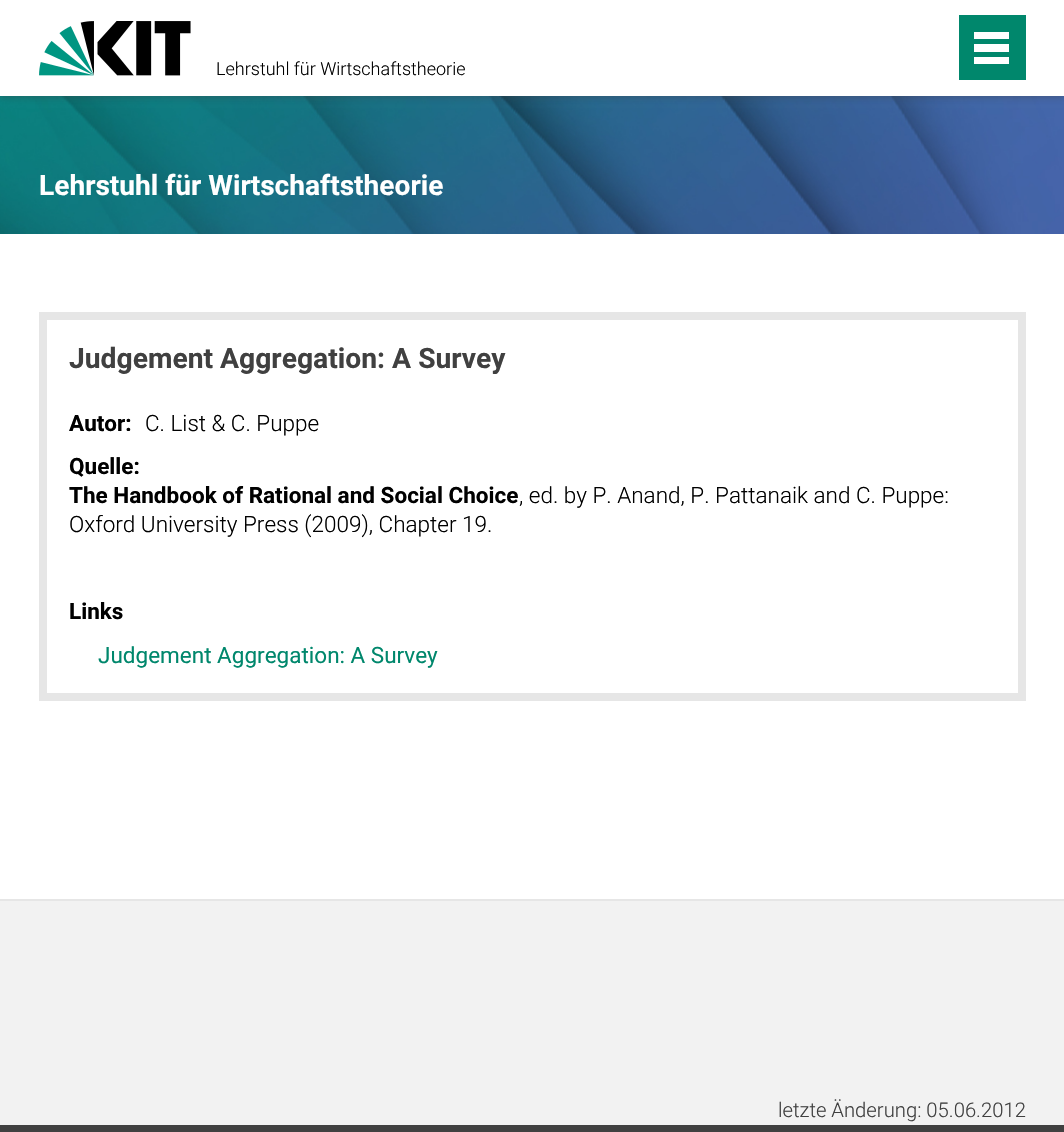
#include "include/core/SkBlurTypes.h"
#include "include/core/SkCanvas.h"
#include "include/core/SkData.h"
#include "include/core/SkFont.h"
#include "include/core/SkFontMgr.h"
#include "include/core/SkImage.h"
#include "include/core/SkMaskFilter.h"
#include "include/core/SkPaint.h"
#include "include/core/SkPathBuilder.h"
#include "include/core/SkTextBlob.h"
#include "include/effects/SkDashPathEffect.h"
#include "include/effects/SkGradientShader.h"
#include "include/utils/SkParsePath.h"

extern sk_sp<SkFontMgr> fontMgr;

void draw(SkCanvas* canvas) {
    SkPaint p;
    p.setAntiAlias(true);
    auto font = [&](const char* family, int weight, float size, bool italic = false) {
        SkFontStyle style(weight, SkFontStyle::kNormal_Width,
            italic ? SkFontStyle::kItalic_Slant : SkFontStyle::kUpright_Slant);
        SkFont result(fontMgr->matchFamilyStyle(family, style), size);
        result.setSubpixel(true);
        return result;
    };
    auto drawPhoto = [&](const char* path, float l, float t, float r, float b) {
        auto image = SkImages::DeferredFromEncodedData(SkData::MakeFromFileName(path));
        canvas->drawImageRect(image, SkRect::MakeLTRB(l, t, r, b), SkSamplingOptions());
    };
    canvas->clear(0xFFFFFFFF);
    drawPhoto("media/2.png", 0, 96, 1064, 234);
    p.setColor(0x80404040);
    p.setMaskFilter(SkMaskFilter::MakeBlur(kNormal_SkBlurStyle, 4));
    canvas->drawRect(SkRect::MakeLTRB(0, 0, 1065, 96), p);
    p.setMaskFilter(nullptr);
    p.setColor(0xFFFFFFFF);
    canvas->drawRect(SkRect::MakeLTRB(0, 0, 1064, 96), p);
    drawPhoto("media/1.png", 39, 21, 191, 76);
    auto font1 = font("Roboto", 300, 18);
    p.setColor(0xFF000000);
    canvas->drawString("Lehrstuhl für Wirtschaftstheorie", 216, 75, font1, p);
    {
        const struct { float l, t, r, b; SkColor color; } items[] = {
            {959, 15, 1026, 80, 0xFF00876C},
            {974, 57, 1009, 64, 0xFFFFFFFF},
            {974, 44, 1009, 52, 0xFFFFFFFF},
            {974, 32, 1009, 39, 0xFFFFFFFF},
        };
        for (auto [l, t, r, b, color] : items) {
            p.setColor(color);
            canvas->drawRect(SkRect::MakeLTRB(l, t, r, b), p);
        }
    }
    auto font2 = font("Roboto", 700, 28.1f);
    canvas->drawString("Lehrstuhl für Wirtschaftstheorie", 39, 195, font2, p);
    p.setStyle(SkPaint::kStroke_Style);
    p.setStrokeWidth(8);
    p.setColor(0xFFE6E6E6);
    canvas->drawRect(SkRect::MakeLTRB(43, 316, 1022, 697), p);
    auto font3 = font("Roboto", 700, 28.25f);
    p.setStyle(SkPaint::kFill_Style);
    p.setColor(0xFF404040);
    canvas->drawString("Judgement Aggregation: A Survey", 69, 368, font3, p);
    auto font4 = font("Roboto", 700, 22.5f);
    p.setColor(0xFF000000);
    canvas->drawString("Autor:", 69, 431, font4, p);
    auto font5 = font("Roboto", 300, 22.5f);
    canvas->drawString("C. List & C. Puppe", 145, 431, font5, p);
    canvas->drawString("Quelle:", 69, 474, font4, p);
    canvas->drawString("The Handbook of Rational and Social Choice", 69, 503, font4, p);
    canvas->drawString(", ed. by P. Anand, P. Pattanaik and C. Puppe:", 519, 503, font5, p);
    canvas->drawString("Oxford University Press (2009), Chapter 19.", 69, 532, font5, p);
    canvas->drawString("Links", 69, 619, font4, p);
    auto font6 = font("Roboto", 400, 22.5f);
    p.setColor(0xFF00876C);
    canvas->drawString("Judgement Aggregation: A Survey", 98, 663, font6, p);
    p.setColor(0xFFF2F2F2);
    canvas->drawRect(SkRect::MakeLTRB(0, 901, 1064, 1125), p);
    p.setColor(0xFFE6E6E6);
    canvas->drawRect(SkRect::MakeLTRB(0, 899, 1064, 901), p);
    auto font7 = font("Roboto", 300, 20.25f);
    p.setColor(0xFF404040);
    canvas->drawString("letzte Änderung: 05.06.2012", 778, 1117, font7, p);
    canvas->drawRect(SkRect::MakeLTRB(0, 1125, 1064, 1132), p);
}
